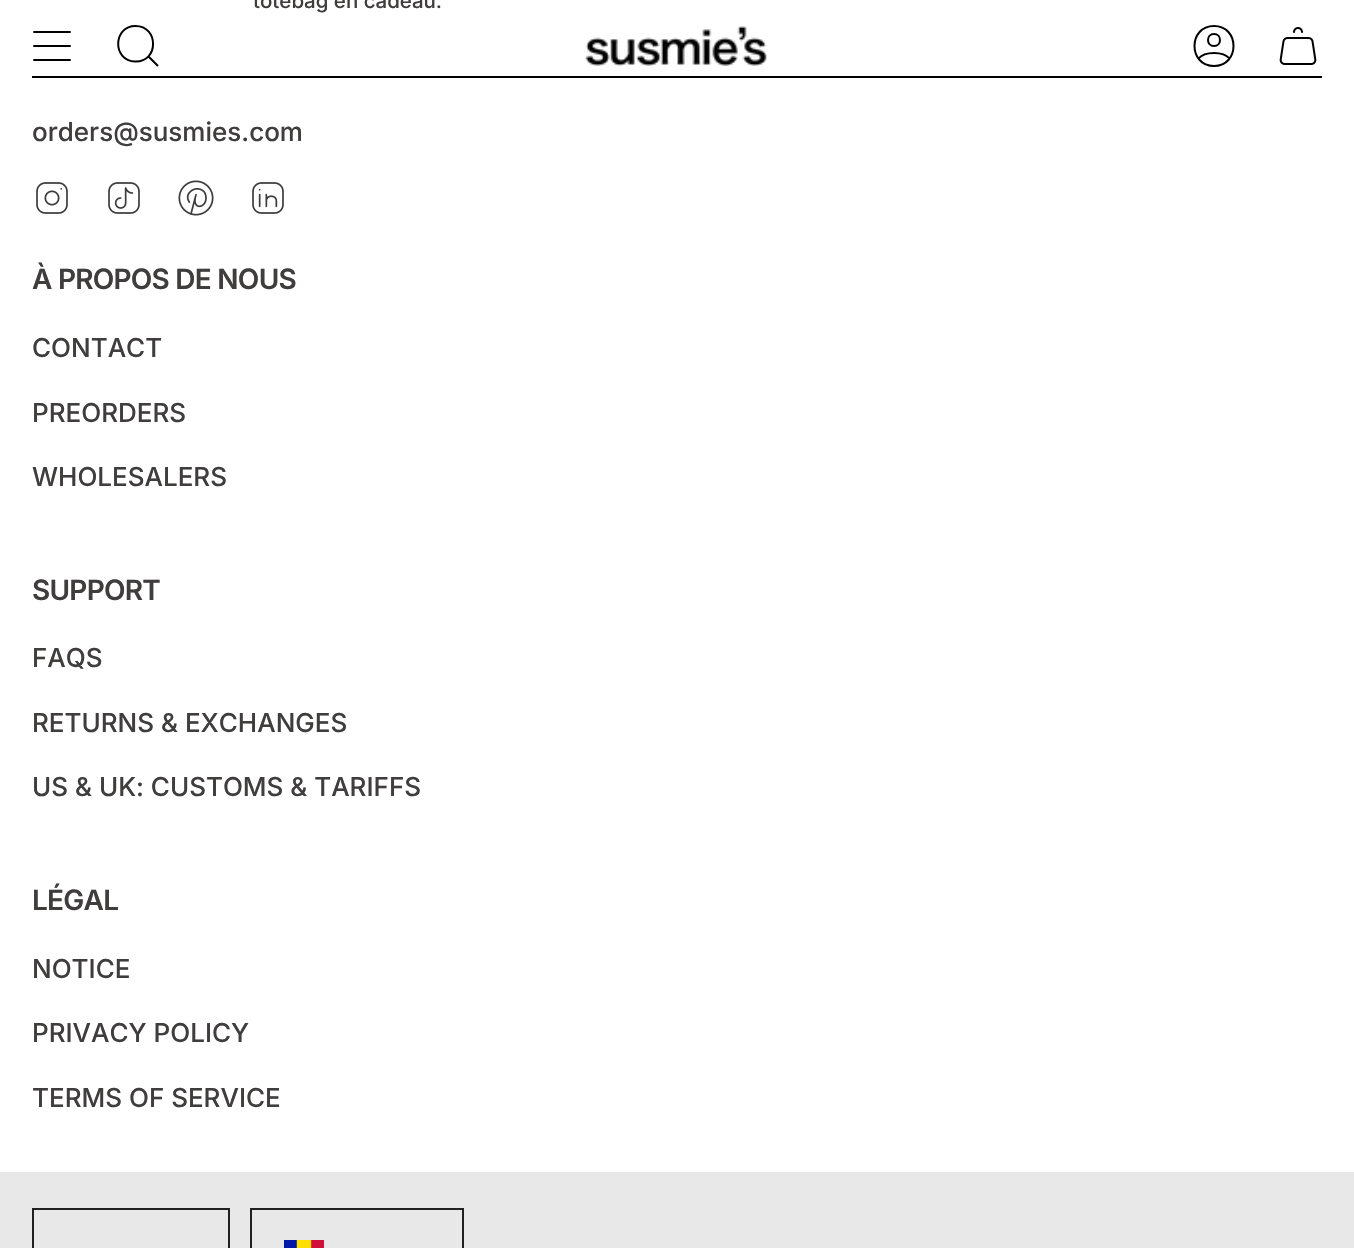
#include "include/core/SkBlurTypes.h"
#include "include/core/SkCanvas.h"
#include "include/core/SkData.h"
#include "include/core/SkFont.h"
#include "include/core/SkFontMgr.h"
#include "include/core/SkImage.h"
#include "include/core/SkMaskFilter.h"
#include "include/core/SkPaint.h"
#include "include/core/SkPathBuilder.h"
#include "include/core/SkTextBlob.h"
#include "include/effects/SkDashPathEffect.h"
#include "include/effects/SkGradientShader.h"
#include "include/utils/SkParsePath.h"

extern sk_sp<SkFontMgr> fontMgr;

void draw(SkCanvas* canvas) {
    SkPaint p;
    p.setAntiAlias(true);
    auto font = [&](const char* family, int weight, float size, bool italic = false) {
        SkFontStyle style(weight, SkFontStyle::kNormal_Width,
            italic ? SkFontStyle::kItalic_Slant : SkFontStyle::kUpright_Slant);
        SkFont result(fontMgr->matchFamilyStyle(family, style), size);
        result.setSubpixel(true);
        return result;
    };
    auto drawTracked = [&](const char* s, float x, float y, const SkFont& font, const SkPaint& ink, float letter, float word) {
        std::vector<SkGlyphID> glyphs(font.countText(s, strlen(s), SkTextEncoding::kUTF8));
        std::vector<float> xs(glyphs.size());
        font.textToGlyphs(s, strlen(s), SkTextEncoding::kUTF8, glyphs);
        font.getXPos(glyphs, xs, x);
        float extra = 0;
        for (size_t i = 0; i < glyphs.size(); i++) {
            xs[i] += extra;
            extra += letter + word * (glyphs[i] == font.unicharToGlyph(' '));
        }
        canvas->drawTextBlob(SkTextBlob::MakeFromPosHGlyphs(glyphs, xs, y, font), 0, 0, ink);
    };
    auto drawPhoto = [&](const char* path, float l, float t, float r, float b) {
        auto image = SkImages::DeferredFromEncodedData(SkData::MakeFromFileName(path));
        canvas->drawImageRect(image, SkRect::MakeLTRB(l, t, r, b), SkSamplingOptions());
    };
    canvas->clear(0xFFFFFFFF);
    auto font1 = font("Inter", 500, 20.5f);
    p.setColor(0xFF403D3D);
    canvas->drawString("totebag en cadeau.", 253, 8, font1, p);
    p.setStyle(SkPaint::kStroke_Style);
    p.setStrokeWidth(2);
    p.setStrokeCap(SkPaint::kRound_Cap);
    p.setStrokeJoin(SkPaint::kRound_Join);
    p.setColor(0xFF000000);
    canvas->drawPath(SkPathBuilder().moveTo(34, 32).lineTo(70, 32).moveTo(34, 46).lineTo(70, 46).moveTo(34, 60).lineTo(70, 60).detach(), p);
    p.setStrokeCap(SkPaint::kButt_Cap);
    p.setStrokeJoin(SkPaint::kMiter_Join);
    canvas->drawPath(SkPathBuilder().moveTo(135.5f, 26).cubicTo(159, 26, 159, 62.5f, 135, 61.5f).cubicTo(112, 60.5f, 113, 26, 135.5f, 26).close().moveTo(148, 56).lineTo(158, 66).detach(), p);
    drawPhoto("media/1.png", 585, 26, 767, 66);
    p.setStrokeCap(SkPaint::kRound_Cap);
    p.setStrokeJoin(SkPaint::kRound_Join);
    canvas->drawPath(SkPathBuilder().moveTo(1214, 26).cubicTo(1188, 26, 1188, 66, 1214, 66).cubicTo(1240, 66, 1240, 26, 1214, 26).close().moveTo(1198.5f, 58.5f).cubicTo(1204.5f, 51, 1223.5f, 51, 1229.5f, 58.5f).moveTo(1214, 46).cubicTo(1222, 46, 1222, 34, 1214, 34).cubicTo(1206, 34, 1206, 46, 1214, 46).close().detach(), p);
    drawPhoto("media/2.png", 1279, 27, 1317, 65);
    p.setStyle(SkPaint::kFill_Style);
    canvas->drawRect(SkRect::MakeLTRB(32, 76, 1322, 78), p);
    auto font2 = font("Inter", 500, 26);
    p.setColor(0xFF403D3D);
    canvas->drawString("orders@susmies.com", 32, 141, font2, p);
    drawPhoto("media/3.png", 36, 182, 68, 214);
    drawPhoto("media/4.png", 108, 182, 140, 214);
    drawPhoto("media/5.png", 178, 180, 214, 216);
    drawPhoto("media/6.png", 252, 182, 284, 214);
    auto font3 = font("Inter", 600, 28);
    drawTracked("À PROPOS DE NOUS", 32, 289, font3, p, -0.75f, 0);
    {
        const struct { const char* s; float x, y; } items[] = {
            {"CONTACT", 32, 357},
            {"PREORDERS", 32, 422},
            {"WHOLESALERS", 32, 486},
        };
        for (auto [s, x, y] : items) {
            canvas->drawString(s, x, y, font2, p);
        }
    }
    drawTracked("SUPPORT", 32, 600, font3, p, -0.75f, 0);
    {
        const struct { const char* s; float x, y; } items[] = {
            {"FAQS", 32, 667},
            {"RETURNS & EXCHANGES", 32, 732},
            {"US & UK: CUSTOMS & TARIFFS", 32, 796},
        };
        for (auto [s, x, y] : items) {
            canvas->drawString(s, x, y, font2, p);
        }
    }
    drawTracked("LÉGAL", 32, 910, font3, p, -0.75f, 0);
    {
        const struct { const char* s; float x, y; } items[] = {
            {"NOTICE", 32, 978},
            {"PRIVACY POLICY", 32, 1042},
            {"TERMS OF SERVICE", 32, 1107},
        };
        for (auto [s, x, y] : items) {
            canvas->drawString(s, x, y, font2, p);
        }
    }
    p.setColor(0xFFE8E8E8);
    canvas->drawRect(SkRect::MakeLTRB(0, 1172, 1354, 1248), p);
    p.setStyle(SkPaint::kStroke_Style);
    p.setStrokeCap(SkPaint::kButt_Cap);
    p.setStrokeJoin(SkPaint::kMiter_Join);
    p.setColor(0xFF212121);
    canvas->drawRect(SkRect::MakeLTRB(33, 1209, 229, 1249), p);
    canvas->drawRect(SkRect::MakeLTRB(251, 1209, 463, 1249), p);
    drawPhoto("media/7.png", 284, 1240, 324, 1248);
}
